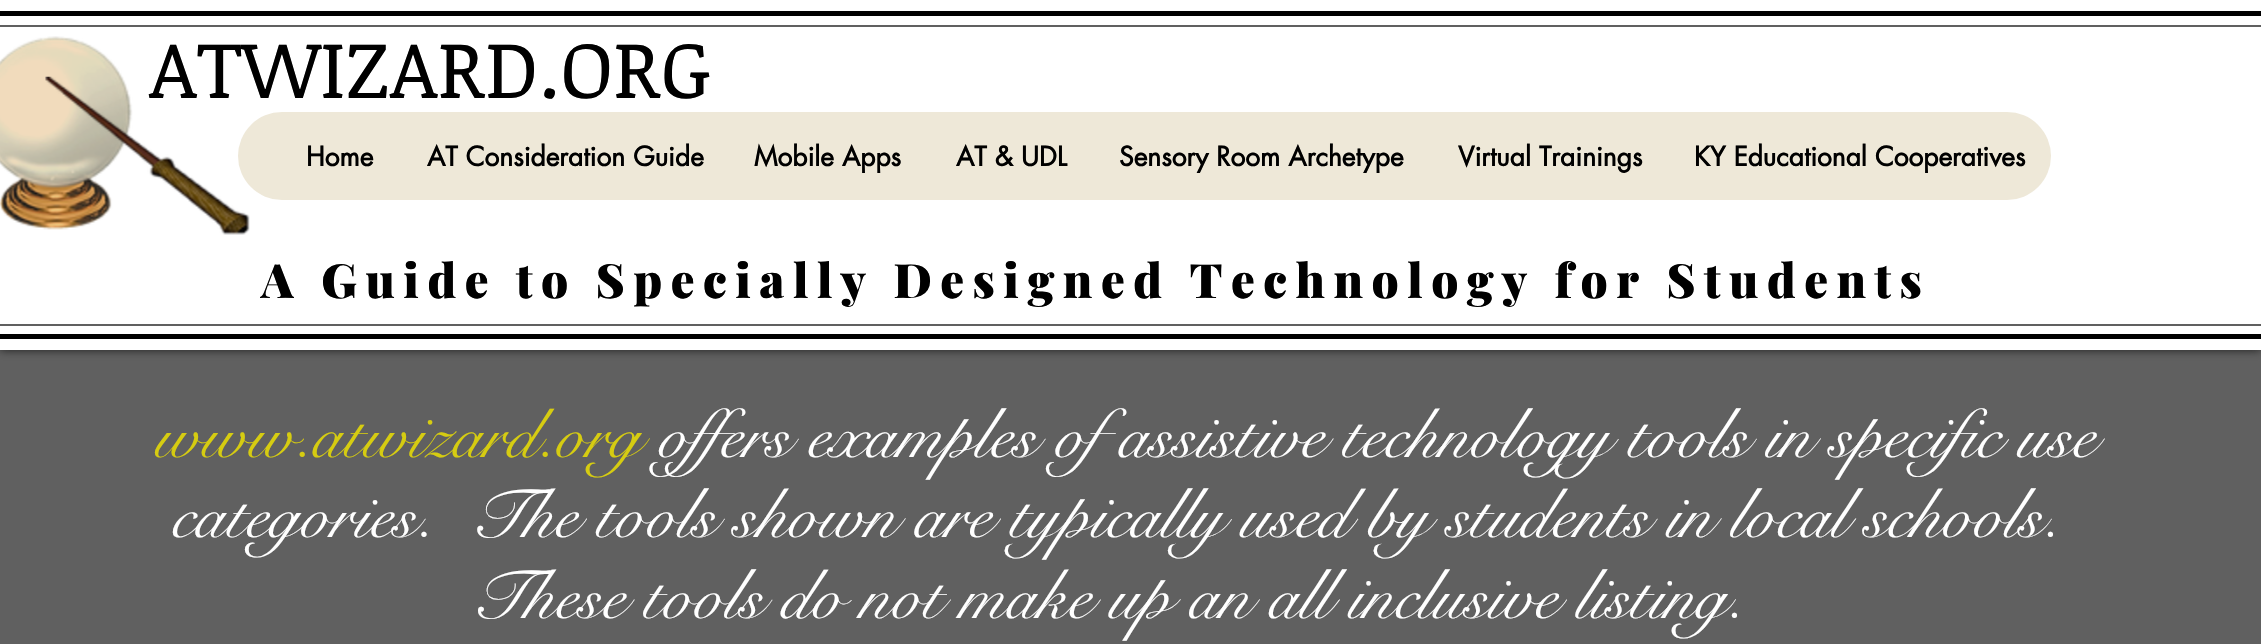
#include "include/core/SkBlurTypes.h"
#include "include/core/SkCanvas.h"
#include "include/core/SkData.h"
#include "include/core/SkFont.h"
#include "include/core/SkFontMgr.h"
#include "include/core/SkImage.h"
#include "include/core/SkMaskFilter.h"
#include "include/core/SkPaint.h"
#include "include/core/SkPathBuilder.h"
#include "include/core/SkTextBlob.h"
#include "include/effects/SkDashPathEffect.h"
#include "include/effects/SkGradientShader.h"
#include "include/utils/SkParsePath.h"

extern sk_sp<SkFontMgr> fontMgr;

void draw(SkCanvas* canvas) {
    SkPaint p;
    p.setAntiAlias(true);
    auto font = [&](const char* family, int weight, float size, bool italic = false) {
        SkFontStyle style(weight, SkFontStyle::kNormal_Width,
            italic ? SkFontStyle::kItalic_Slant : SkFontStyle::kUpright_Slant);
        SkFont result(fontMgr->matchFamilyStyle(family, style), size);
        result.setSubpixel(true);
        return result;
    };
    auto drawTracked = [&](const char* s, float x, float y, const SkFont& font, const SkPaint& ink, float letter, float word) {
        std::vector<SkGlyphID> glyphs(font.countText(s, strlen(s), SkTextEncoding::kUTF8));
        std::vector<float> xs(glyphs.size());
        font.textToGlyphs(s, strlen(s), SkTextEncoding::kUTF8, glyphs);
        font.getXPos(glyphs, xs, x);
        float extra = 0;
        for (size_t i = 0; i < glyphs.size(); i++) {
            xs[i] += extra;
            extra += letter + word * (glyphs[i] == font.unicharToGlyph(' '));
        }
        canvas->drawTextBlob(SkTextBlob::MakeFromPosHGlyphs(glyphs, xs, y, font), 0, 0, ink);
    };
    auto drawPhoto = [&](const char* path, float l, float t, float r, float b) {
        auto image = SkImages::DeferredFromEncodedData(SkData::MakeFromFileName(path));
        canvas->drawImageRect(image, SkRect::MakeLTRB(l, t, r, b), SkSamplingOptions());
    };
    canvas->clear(0xFF606060);
    p.setColor(0xB3000000);
    p.setMaskFilter(SkMaskFilter::MakeBlur(kNormal_SkBlurStyle, 4.5f));
    canvas->drawRect(SkRect::MakeLTRB(0, 0, 2261, 350), p);
    p.setMaskFilter(nullptr);
    {
        const struct { float l, t, r, b; SkColor color; } items[] = {
            {0, 0, 2261, 350, 0xFFFFFFFF},
            {0, 11, 2261, 16, 0xFF000000},
            {0, 334, 2261, 339, 0xFF000000},
            {0, 25, 2261, 27, 0xFF606060},
            {0, 324, 2261, 326, 0xFF606060},
        };
        for (auto [l, t, r, b, color] : items) {
            p.setColor(color);
            canvas->drawRect(SkRect::MakeLTRB(l, t, r, b), p);
        }
    }
    drawPhoto("media/1.png", 0, 36, 133, 230);
    auto font1 = font("Noticia Text", 400, 80.5f);
    p.setColor(0xFF000000);
    canvas->drawString("ATWIZARD.ORG", 149, 98, font1, p);
    drawPhoto("media/2.png", 45, 76, 250, 235);
    p.setColor(0xFFEEE8D8);
    canvas->drawRoundRect(SkRect::MakeLTRB(238, 112, 2051, 200), 44, 44, p);
    auto font2 = font("futura", 700, 26.25f);
    p.setColor(0xFF000000);
    {
        const struct { const char* s; float x, y; } items[] = {
            {"Home", 306, 166},
            {"AT Consideration Guide", 427, 166},
            {"Mobile Apps", 754, 166},
            {"AT & UDL", 956, 166},
            {"Sensory Room Archetype", 1119, 166},
            {"Virtual Trainings", 1458, 166},
            {"KY Educational Cooperatives", 1694, 166},
        };
        for (auto [s, x, y] : items) {
            canvas->drawString(s, x, y, font2, p);
        }
    }
    auto font3 = font("Playfair Display", 900, 47.25f);
    drawTracked("A Guide to Specially Designed Technology for Students", 261, 298, font3, p, 8.5f, 0);
    auto font4 = font("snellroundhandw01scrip", 400, 70);
    p.setColor(0xFFD6CC11);
    canvas->drawString("www.atwizard.org", 155, 457, font4, p);
    p.setColor(0xFFFFFFFF);
    {
        const struct { const char* s; float x, y; } items[] = {
            {"offers examples of assistive technology tools in specific use", 658, 457},
            {"categories.  The tools shown are typically used by students in local schools.", 172, 537},
            {"These tools do not make up an all inclusive listing.", 470, 618},
        };
        for (auto [s, x, y] : items) {
            canvas->drawString(s, x, y, font4, p);
        }
    }
}
